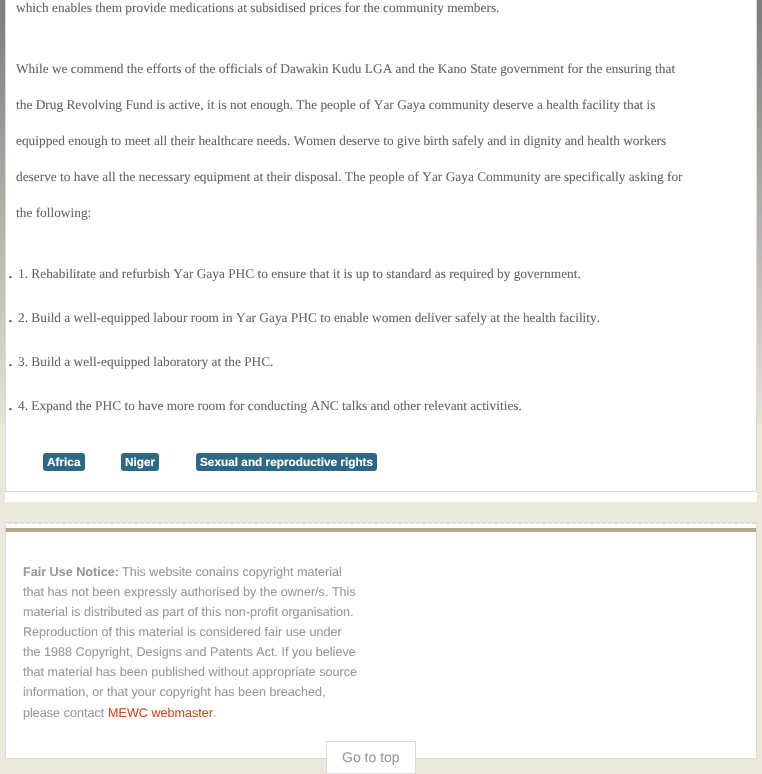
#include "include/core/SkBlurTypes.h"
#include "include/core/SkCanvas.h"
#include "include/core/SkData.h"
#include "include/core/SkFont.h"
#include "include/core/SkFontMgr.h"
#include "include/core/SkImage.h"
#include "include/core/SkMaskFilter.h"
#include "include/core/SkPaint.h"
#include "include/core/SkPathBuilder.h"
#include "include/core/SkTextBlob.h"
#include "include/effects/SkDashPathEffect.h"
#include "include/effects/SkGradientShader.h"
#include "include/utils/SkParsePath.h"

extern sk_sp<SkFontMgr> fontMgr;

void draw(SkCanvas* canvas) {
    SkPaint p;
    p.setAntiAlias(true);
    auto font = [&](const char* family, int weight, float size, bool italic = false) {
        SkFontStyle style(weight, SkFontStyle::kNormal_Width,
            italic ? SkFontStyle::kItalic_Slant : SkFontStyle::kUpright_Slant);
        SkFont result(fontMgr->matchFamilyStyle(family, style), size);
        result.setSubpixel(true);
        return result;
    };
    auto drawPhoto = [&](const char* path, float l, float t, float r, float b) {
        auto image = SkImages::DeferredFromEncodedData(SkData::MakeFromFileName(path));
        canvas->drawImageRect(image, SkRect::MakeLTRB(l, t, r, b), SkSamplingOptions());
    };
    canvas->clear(0xFFEBE8D9);
    drawPhoto("media/1.png", 0, 0, 762, 424);
    p.setColor(0xFFFFFFFF);
    canvas->drawRect(SkRect::MakeLTRB(5, 0, 757, 502), p);
    p.setStyle(SkPaint::kStroke_Style);
    p.setStrokeWidth(1);
    p.setColor(0xFFDADADA);
    canvas->drawRect(SkRect::MakeLTRB(5.5f, -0.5f, 756.5f, 491.5f), p);
    auto font1 = font("Liberation Serif", 400, 13.35f);
    p.setStyle(SkPaint::kFill_Style);
    p.setColor(0xFF666666);
    {
        const struct { const char* s; float x, y; } items[] = {
            {"which enables them provide medications at subsidised prices for the community members.", 16, 12},
            {"While we commend the efforts of the officials of Dawakin Kudu LGA and the Kano State government for the ensuring that", 16, 73},
            {"the Drug Revolving Fund is active, it is not enough. The people of Yar Gaya community deserve a health facility that is", 16, 109},
            {"equipped enough to meet all their healthcare needs. Women deserve to give birth safely and in dignity and health workers", 16, 145},
            {"deserve to have all the necessary equipment at their disposal. The people of Yar Gaya Community are specifically asking for", 16, 181},
            {"the following:", 16, 217},
        };
        for (auto [s, x, y] : items) {
            canvas->drawString(s, x, y, font1, p);
        }
    }
    auto font2 = font("Liberation Serif", 400, 20);
    canvas->drawString(".", 8, 278, font2, p);
    canvas->drawString("1. Rehabilitate and refurbish Yar Gaya PHC to ensure that it is up to standard as required by government.", 18, 278, font1, p);
    canvas->drawString(".", 8, 322, font2, p);
    canvas->drawString("2. Build a well-equipped labour room in Yar Gaya PHC to enable women deliver safely at the health facility.", 18, 322, font1, p);
    canvas->drawString(".", 8, 366, font2, p);
    canvas->drawString("3. Build a well-equipped laboratory at the PHC.", 18, 366, font1, p);
    canvas->drawString(".", 8, 410, font2, p);
    canvas->drawString("4. Expand the PHC to have more room for conducting ANC talks and other relevant activities.", 18, 410, font1, p);
    p.setColor(0xFF2D6987);
    canvas->drawRoundRect(SkRect::MakeLTRB(43, 453, 85, 471), 3, 3, p);
    auto font3 = font("Liberation Sans", 700, 11.8f);
    p.setColor(0xFFFFFFFF);
    canvas->drawString("Africa", 47, 466, font3, p);
    p.setColor(0xFF2D6987);
    canvas->drawRoundRect(SkRect::MakeLTRB(121, 453, 159, 471), 3, 3, p);
    p.setColor(0xFFFFFFFF);
    canvas->drawString("Niger", 125, 466, font3, p);
    p.setColor(0xFF2D6987);
    canvas->drawRoundRect(SkRect::MakeLTRB(196, 453, 377, 471), 3, 3, p);
    p.setColor(0xFFFFFFFF);
    canvas->drawString("Sexual and reproductive rights", 200, 466, font3, p);
    canvas->drawRect(SkRect::MakeLTRB(6, 524, 756, 758), p);
    drawPhoto("media/2.png", 6, 523, 756, 524);
    p.setStyle(SkPaint::kStroke_Style);
    p.setColor(0xFFDADADA);
    canvas->drawRect(SkRect::MakeLTRB(5.5f, 522.5f, 756.5f, 758.5f), p);
    p.setStyle(SkPaint::kFill_Style);
    p.setColor(0xFFB0A88E);
    canvas->drawRect(SkRect::MakeLTRB(6, 528, 756, 532), p);
    auto font4 = font("Liberation Sans", 700, 12.6f);
    p.setColor(0xFF999999);
    canvas->drawString("Fair Use Notice:", 23, 576, font4, p);
    auto font5 = font("Liberation Sans", 400, 12.6f);
    {
        const struct { const char* s; float x, y; } items[] = {
            {"This website conains copyright material", 122, 576},
            {"that has not been expressly authorised by the owner/s. This", 23, 596},
            {"material is distributed as part of this non-profit organisation.", 23, 616},
            {"Reproduction of this material is considered fair use under", 23, 636},
            {"the 1988 Copyright, Designs and Patents Act. If you believe", 23, 656},
            {"that material has been published without appropriate source", 23, 676},
            {"information, or that your copyright has been breached,", 23, 696},
            {"please contact", 23, 717},
        };
        for (auto [s, x, y] : items) {
            canvas->drawString(s, x, y, font5, p);
        }
    }
    p.setColor(0xFFD24A17);
    canvas->drawString("MEWC webmaster", 108, 717, font5, p);
    p.setColor(0xFF999999);
    canvas->drawString(".", 213, 717, font5, p);
    p.setColor(0xFFFFFFFF);
    canvas->drawRect(SkRect::MakeLTRB(327, 758, 415, 773), p);
    p.setStyle(SkPaint::kStroke_Style);
    p.setColor(0xFFDADADA);
    canvas->drawRect(SkRect::MakeLTRB(326.5f, 741.5f, 415.5f, 773.5f), p);
    auto font6 = font("Liberation Sans", 400, 14);
    p.setStyle(SkPaint::kFill_Style);
    p.setColor(0xFF999999);
    canvas->drawString("Go to top", 342, 762, font6, p);
}
